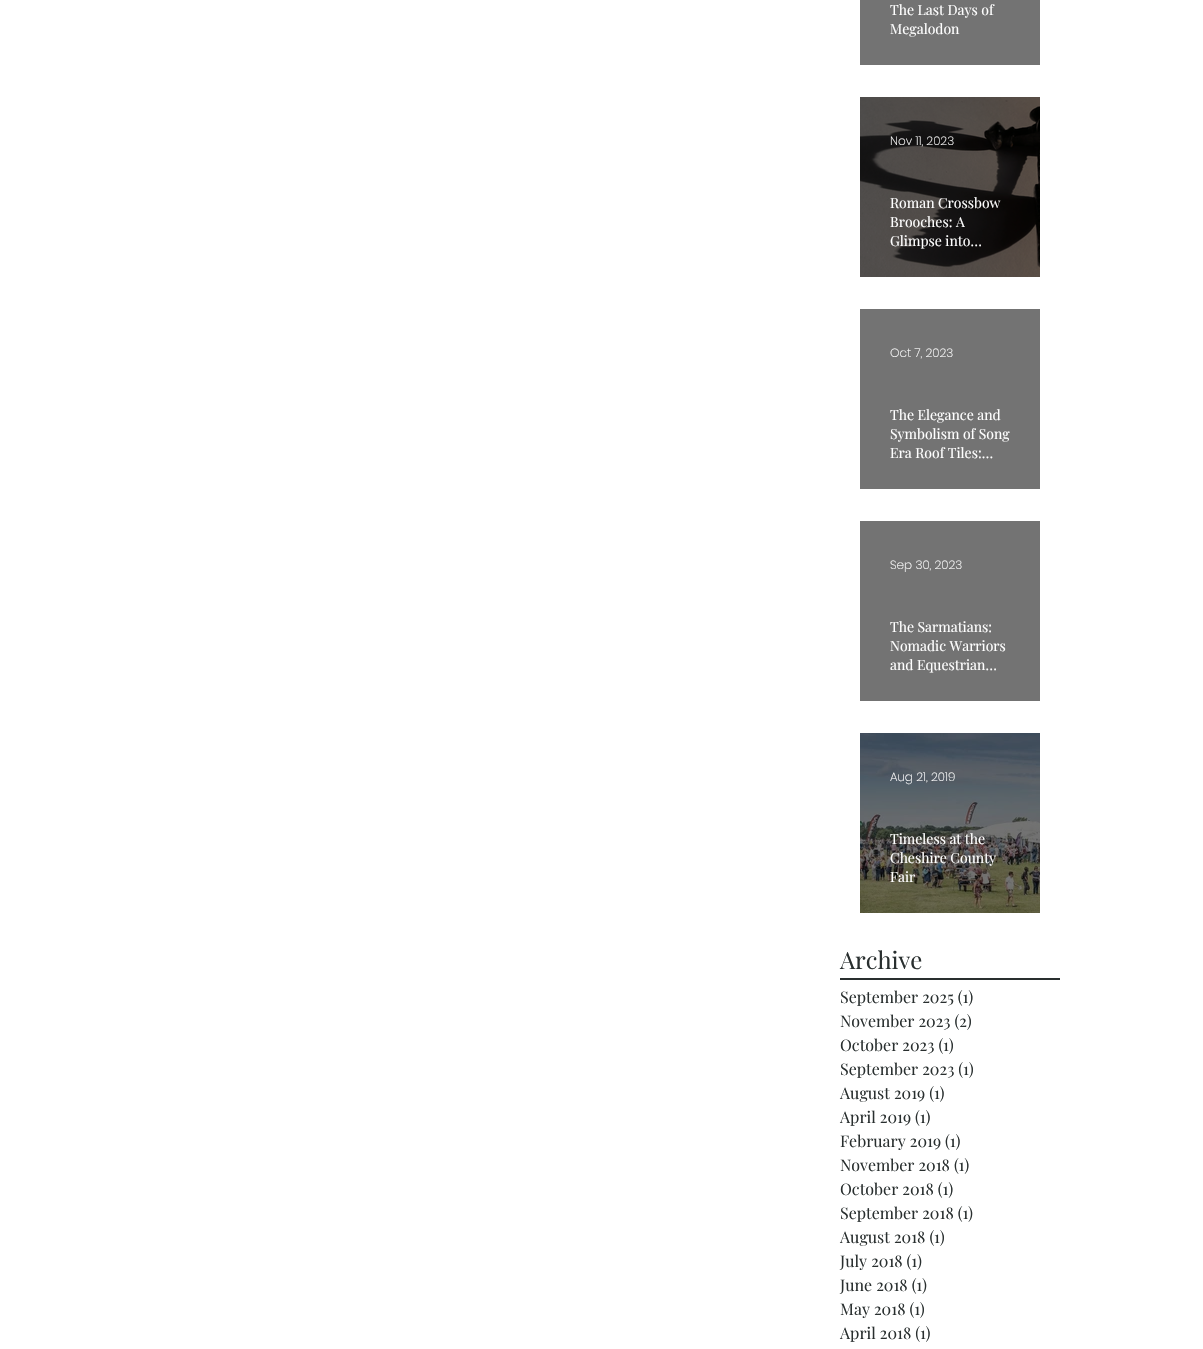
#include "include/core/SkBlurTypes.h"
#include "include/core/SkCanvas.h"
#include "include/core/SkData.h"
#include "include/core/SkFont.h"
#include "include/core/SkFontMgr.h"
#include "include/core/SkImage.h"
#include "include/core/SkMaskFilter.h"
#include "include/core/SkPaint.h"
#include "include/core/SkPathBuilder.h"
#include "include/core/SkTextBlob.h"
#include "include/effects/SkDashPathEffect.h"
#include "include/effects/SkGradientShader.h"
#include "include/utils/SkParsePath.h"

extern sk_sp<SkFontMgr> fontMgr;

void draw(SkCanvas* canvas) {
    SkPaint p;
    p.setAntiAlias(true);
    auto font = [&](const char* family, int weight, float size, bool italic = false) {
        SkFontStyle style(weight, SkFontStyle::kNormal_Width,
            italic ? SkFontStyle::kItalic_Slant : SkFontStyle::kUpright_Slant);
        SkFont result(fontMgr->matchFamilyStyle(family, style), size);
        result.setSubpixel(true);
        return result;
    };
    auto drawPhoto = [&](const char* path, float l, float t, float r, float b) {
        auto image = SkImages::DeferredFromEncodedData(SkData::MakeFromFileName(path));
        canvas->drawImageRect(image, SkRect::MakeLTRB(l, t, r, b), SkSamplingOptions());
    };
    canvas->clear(0xFFFFFFFF);
    p.setColor(0xFF737373);
    canvas->drawRect(SkRect::MakeLTRB(860, 0, 1040, 65), p);
    auto font1 = font("Playfair Display", 400, 14);
    p.setColor(0xFFFFFFFF);
    canvas->drawString("The Last Days of", 890, 15, font1, p);
    canvas->drawString("Megalodon", 890, 34, font1, p);
    drawPhoto("media/1.png", 860, 97, 1040, 277);
    auto font2 = font("Poppins", 200, 12);
    canvas->drawString("Nov 11, 2023", 890, 145, font2, p);
    {
        const struct { const char* s; float x, y; } items[] = {
            {"Roman Crossbow", 890, 208},
            {"Brooches: A", 890, 227},
            {"Glimpse into…", 890, 246},
        };
        for (auto [s, x, y] : items) {
            canvas->drawString(s, x, y, font1, p);
        }
    }
    p.setColor(0xFF737373);
    canvas->drawRect(SkRect::MakeLTRB(860, 309, 1040, 489), p);
    p.setColor(0xFFFFFFFF);
    canvas->drawString("Oct 7, 2023", 890, 357, font2, p);
    {
        const struct { const char* s; float x, y; } items[] = {
            {"The Elegance and", 890, 420},
            {"Symbolism of Song", 890, 439},
            {"Era Roof Tiles:…", 890, 458},
        };
        for (auto [s, x, y] : items) {
            canvas->drawString(s, x, y, font1, p);
        }
    }
    p.setColor(0xFF737373);
    canvas->drawRect(SkRect::MakeLTRB(860, 521, 1040, 701), p);
    p.setColor(0xFFFFFFFF);
    canvas->drawString("Sep 30, 2023", 890, 569, font2, p);
    {
        const struct { const char* s; float x, y; } items[] = {
            {"The Sarmatians:", 890, 632},
            {"Nomadic Warriors", 890, 651},
            {"and Equestrian…", 890, 670},
        };
        for (auto [s, x, y] : items) {
            canvas->drawString(s, x, y, font1, p);
        }
    }
    drawPhoto("media/2.png", 860, 733, 1040, 913);
    canvas->drawString("Aug 21, 2019", 890, 781, font2, p);
    {
        const struct { const char* s; float x, y; } items[] = {
            {"Timeless at the", 890, 844},
            {"Cheshire County", 890, 863},
            {"Fair", 890, 882},
        };
        for (auto [s, x, y] : items) {
            canvas->drawString(s, x, y, font1, p);
        }
    }
    auto font3 = font("Playfair Display", 400, 24);
    p.setColor(0xFF292F2F);
    canvas->drawString("Archive", 840, 969, font3, p);
    canvas->drawRect(SkRect::MakeLTRB(840, 978, 1060, 980), p);
    auto font4 = font("Playfair Display", 400, 16);
    {
        const struct { const char* s; float x, y; } items[] = {
            {"September 2025 (1)", 840, 1003},
            {"November 2023 (2)", 840, 1027},
            {"October 2023 (1)", 840, 1051},
            {"September 2023 (1)", 840, 1075},
            {"August 2019 (1)", 840, 1099},
            {"April 2019 (1)", 840, 1123},
            {"February 2019 (1)", 840, 1147},
            {"November 2018 (1)", 840, 1171},
            {"October 2018 (1)", 840, 1195},
            {"September 2018 (1)", 840, 1219},
            {"August 2018 (1)", 840, 1243},
            {"July 2018 (1)", 840, 1267},
            {"June 2018 (1)", 840, 1291},
            {"May 2018 (1)", 840, 1315},
            {"April 2018 (1)", 840, 1339},
        };
        for (auto [s, x, y] : items) {
            canvas->drawString(s, x, y, font4, p);
        }
    }
}
